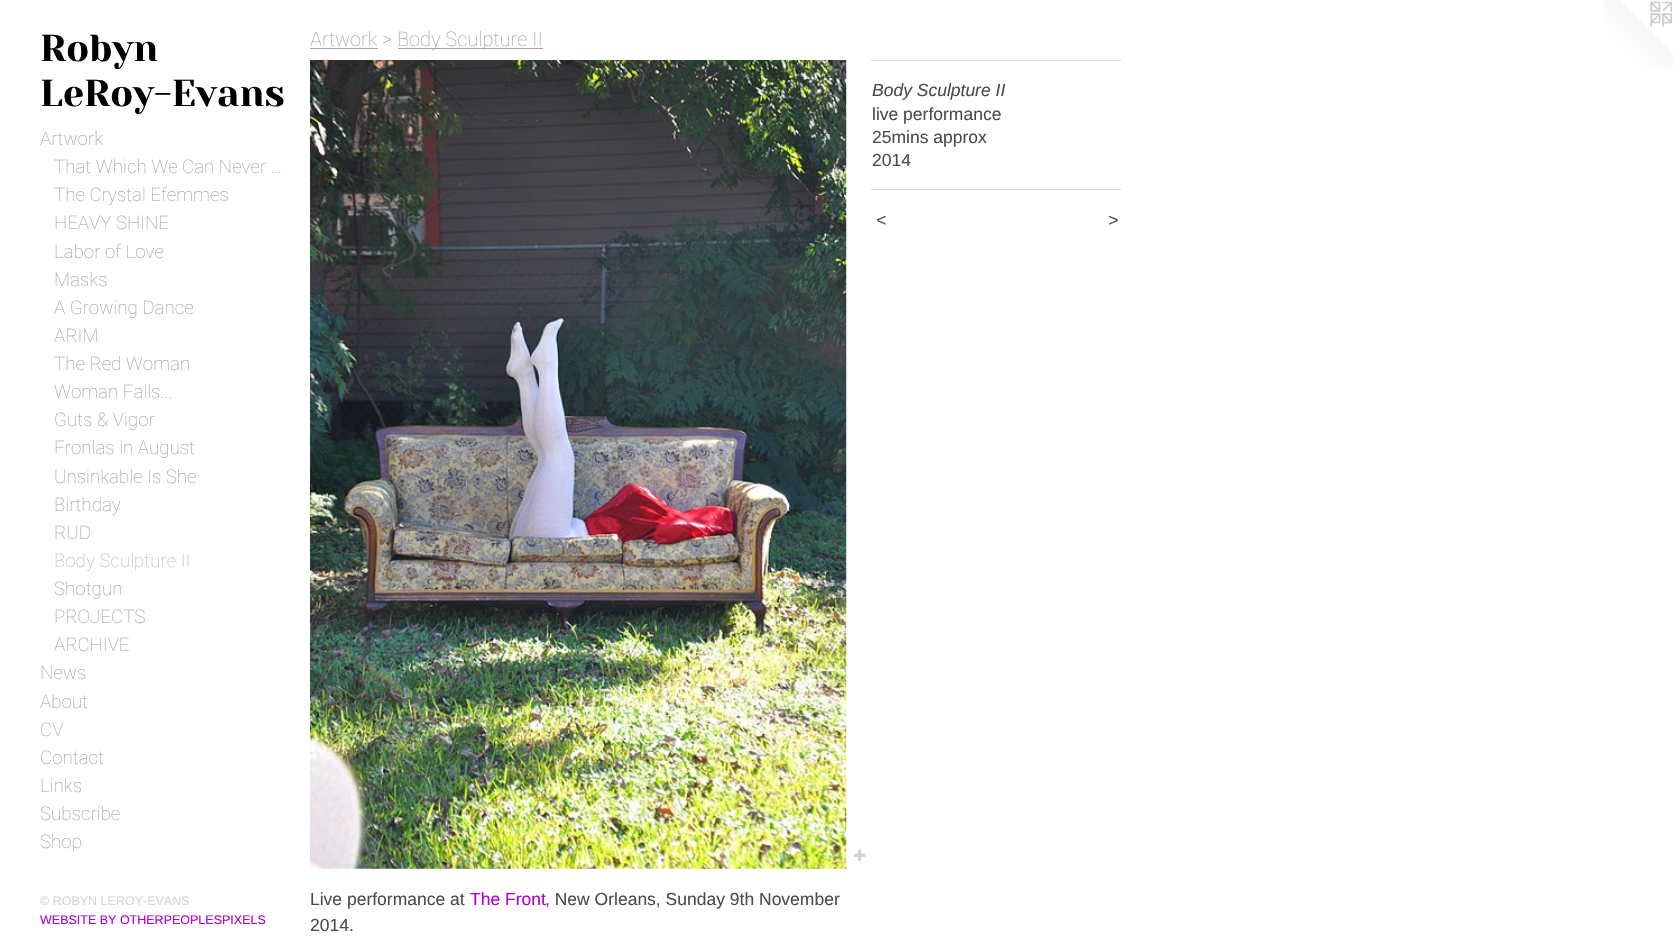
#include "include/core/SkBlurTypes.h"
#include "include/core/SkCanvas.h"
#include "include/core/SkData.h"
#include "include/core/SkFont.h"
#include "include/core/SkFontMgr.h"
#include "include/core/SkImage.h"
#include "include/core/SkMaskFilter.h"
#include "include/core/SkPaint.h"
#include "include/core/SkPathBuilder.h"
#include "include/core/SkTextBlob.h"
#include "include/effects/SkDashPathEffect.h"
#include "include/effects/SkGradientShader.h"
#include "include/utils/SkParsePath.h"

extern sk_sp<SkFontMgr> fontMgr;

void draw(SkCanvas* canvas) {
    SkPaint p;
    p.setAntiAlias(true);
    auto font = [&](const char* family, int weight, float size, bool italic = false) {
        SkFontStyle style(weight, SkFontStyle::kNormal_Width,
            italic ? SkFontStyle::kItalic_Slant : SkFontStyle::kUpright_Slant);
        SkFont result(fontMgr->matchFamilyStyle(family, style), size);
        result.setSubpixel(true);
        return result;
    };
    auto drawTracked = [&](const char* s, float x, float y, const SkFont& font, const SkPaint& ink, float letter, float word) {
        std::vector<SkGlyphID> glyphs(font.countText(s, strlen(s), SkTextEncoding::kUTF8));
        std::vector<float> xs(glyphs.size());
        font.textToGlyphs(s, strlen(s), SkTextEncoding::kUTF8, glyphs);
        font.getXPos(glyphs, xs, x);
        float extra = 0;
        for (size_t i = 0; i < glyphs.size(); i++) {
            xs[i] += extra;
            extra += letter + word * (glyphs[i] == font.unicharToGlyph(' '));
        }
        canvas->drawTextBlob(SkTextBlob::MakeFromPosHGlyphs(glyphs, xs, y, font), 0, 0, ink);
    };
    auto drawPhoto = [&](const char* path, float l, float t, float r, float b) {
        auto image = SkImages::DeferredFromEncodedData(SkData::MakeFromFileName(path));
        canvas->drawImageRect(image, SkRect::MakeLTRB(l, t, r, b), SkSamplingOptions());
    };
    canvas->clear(0xFFFFFFFF);
    auto font1 = font("Yeseva One", 400, 37.5f);
    p.setColor(0xFF000000);
    canvas->drawString("Robyn", 40, 61, font1, p);
    canvas->drawString("LeRoy-Evans", 40, 106, font1, p);
    auto font2 = font("Roboto", 100, 18.75f);
    p.setColor(0xFFA3A3A3);
    {
        const struct { const char* s; float x, y; } items[] = {
            {"Artwork", 40, 145},
            {"That Which We Can Never …", 54, 173},
            {"The Crystal Efemmes", 54, 201},
            {"HEAVY SHINE", 54, 229},
            {"Labor of Love", 54, 258},
            {"Masks", 54, 286},
            {"A Growing Dance", 54, 314},
            {"ARIM", 54, 342},
            {"The Red Woman", 54, 370},
            {"Woman Falls...", 54, 398},
            {"Guts & Vigor", 54, 426},
            {"Fronlas in August", 54, 454},
            {"Unsinkable Is She", 54, 483},
            {"Birthday", 54, 511},
            {"RUD", 54, 539},
        };
        for (auto [s, x, y] : items) {
            canvas->drawString(s, x, y, font2, p);
        }
    }
    p.setColor(0xFFBDBDBD);
    canvas->drawString("Body Sculpture II", 54, 567, font2, p);
    p.setColor(0xFFA3A3A3);
    {
        const struct { const char* s; float x, y; } items[] = {
            {"Shotgun", 54, 595},
            {"PROJECTS", 54, 623},
            {"ARCHIVE", 54, 651},
            {"News", 40, 679},
            {"About", 40, 708},
            {"CV", 40, 736},
            {"Contact", 40, 764},
            {"Links", 40, 792},
            {"Subscribe", 40, 820},
            {"Shop", 40, 848},
        };
        for (auto [s, x, y] : items) {
            canvas->drawString(s, x, y, font2, p);
        }
    }
    auto font3 = font("Liberation Sans", 400, 12.5f);
    p.setColor(0xFFD6D6D6);
    canvas->drawString("© ROBYN LEROY-EVANS", 40, 905, font3, p);
    p.setColor(0xFFB200D7);
    canvas->drawString("WEBSITE BY OTHERPEOPLESPIXELS", 40, 924, font3, p);
    auto font4 = font("Roboto", 100, 20);
    p.setColor(0xFFA3A3A3);
    canvas->drawString("Artwork >", 310, 46, font4, p);
    canvas->drawRect(SkRect::MakeLTRB(310, 48, 378, 49), p);
    canvas->drawRect(SkRect::MakeLTRB(398, 48, 543, 49), p);
    canvas->drawString("Body Sculpture II", 397, 46, font4, p);
    drawPhoto("media/1.png", 310, 60, 847, 869);
    drawPhoto("media/2.png", 853, 849, 866, 862);
    p.setColor(0xFFDBDBDB);
    canvas->drawRect(SkRect::MakeLTRB(871, 60, 1121, 61), p);
    auto font5 = font("Liberation Sans", 400, 17.5f, true);
    p.setColor(0xFF4B4B4B);
    canvas->drawString("Body Sculpture II", 872, 96, font5, p);
    auto font6 = font("Liberation Sans", 400, 17.5f);
    {
        const struct { const char* s; float x, y; } items[] = {
            {"live performance", 872, 120},
            {"25mins approx", 872, 143},
            {"2014", 872, 166},
        };
        for (auto [s, x, y] : items) {
            canvas->drawString(s, x, y, font6, p);
        }
    }
    p.setColor(0xFFDBDBDB);
    canvas->drawRect(SkRect::MakeLTRB(871, 189, 1121, 190), p);
    p.setColor(0xFF4B4B4B);
    drawTracked("<", 876, 226, font5, p, 1, 0);
    drawTracked(">", 1108, 226, font5, p, 1, 0);
    canvas->drawString("Live performance at", 310, 905, font6, p);
    p.setColor(0xFFB200D7);
    canvas->drawString("The Front", 470, 905, font6, p);
    p.setColor(0xFF4B4B4B);
    canvas->drawString(", New Orleans, Sunday 9th November", 545, 905, font6, p);
    canvas->drawString("2014.", 310, 931, font6, p);
    drawPhoto("media/3.png", 1604, 0, 1673, 69);
}
